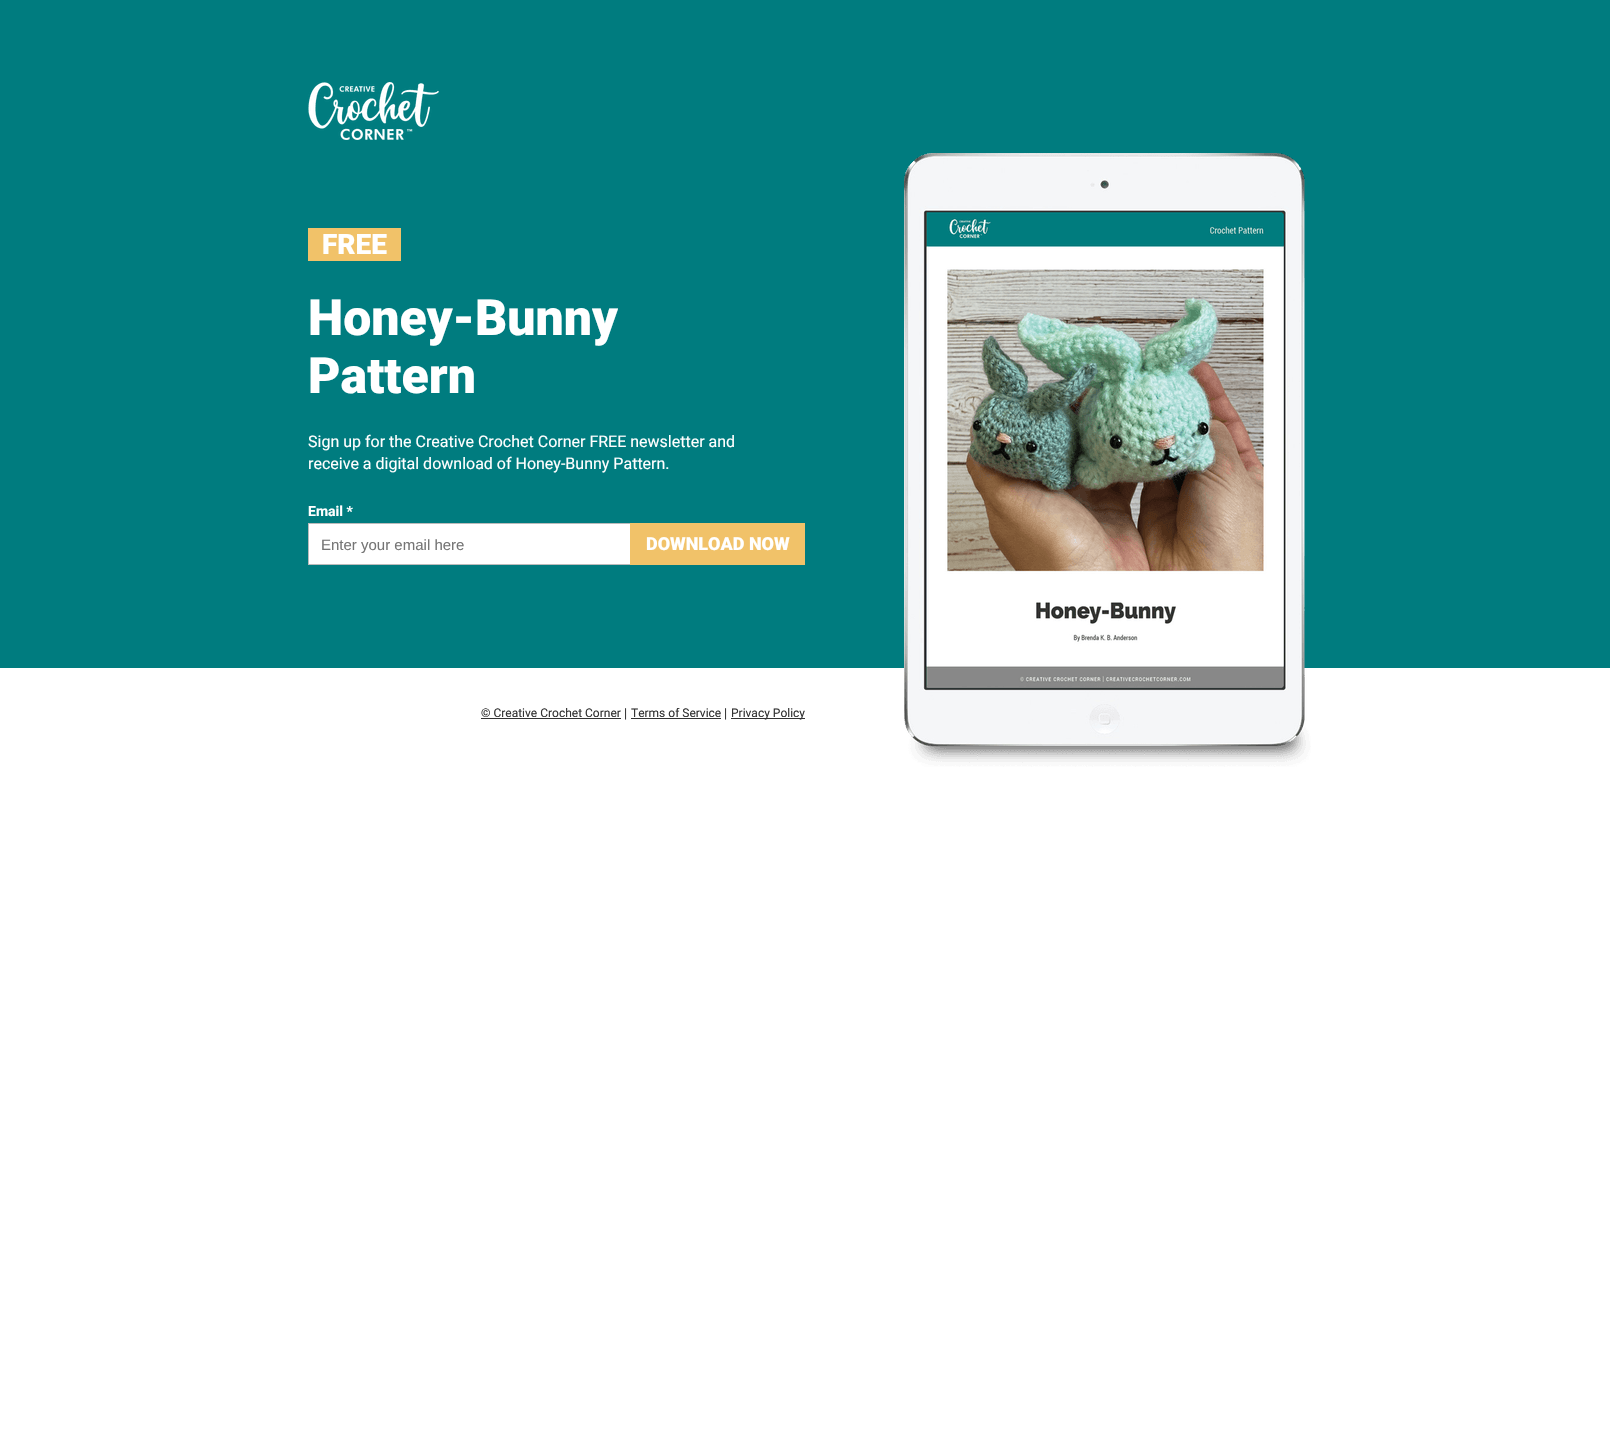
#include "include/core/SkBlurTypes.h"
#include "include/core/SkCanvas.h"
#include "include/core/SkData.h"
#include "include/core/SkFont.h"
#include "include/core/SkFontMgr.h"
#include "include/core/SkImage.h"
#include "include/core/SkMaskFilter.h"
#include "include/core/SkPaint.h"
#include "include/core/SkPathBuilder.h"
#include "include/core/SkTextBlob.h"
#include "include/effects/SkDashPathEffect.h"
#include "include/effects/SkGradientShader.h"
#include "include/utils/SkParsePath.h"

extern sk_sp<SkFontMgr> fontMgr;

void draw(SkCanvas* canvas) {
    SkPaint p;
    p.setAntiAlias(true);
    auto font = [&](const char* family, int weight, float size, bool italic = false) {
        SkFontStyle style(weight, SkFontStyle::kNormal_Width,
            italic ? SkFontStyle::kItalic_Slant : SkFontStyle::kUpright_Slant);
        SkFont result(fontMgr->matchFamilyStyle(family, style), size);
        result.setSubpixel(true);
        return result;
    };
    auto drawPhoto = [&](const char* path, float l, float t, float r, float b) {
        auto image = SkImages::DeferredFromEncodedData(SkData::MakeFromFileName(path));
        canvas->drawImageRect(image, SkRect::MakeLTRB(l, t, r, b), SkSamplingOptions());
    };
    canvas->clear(0xFFFFFFFF);
    p.setColor(0xFF007C7F);
    canvas->drawRect(SkRect::MakeLTRB(0, 0, 1610, 668), p);
    drawPhoto("media/1.png", 308, 82, 439, 140);
    p.setColor(0xFFF1C269);
    canvas->drawRect(SkRect::MakeLTRB(308, 228, 401, 261), p);
    auto font1 = font("Roboto", 900, 28);
    p.setColor(0xFFFFFFFF);
    canvas->drawString("FREE", 322, 254, font1, p);
    drawPhoto("media/2.png", 904, 153, 1311, 767);
    auto font2 = font("Roboto", 900, 50);
    canvas->drawString("Honey-Bunny", 308, 335, font2, p);
    canvas->drawString("Pattern", 308, 393, font2, p);
    auto font3 = font("Roboto", 400, 16);
    canvas->drawString("Sign up for the Creative Crochet Corner FREE newsletter and", 308, 447, font3, p);
    canvas->drawString("receive a digital download of Honey-Bunny Pattern.", 308, 469, font3, p);
    auto font4 = font("Roboto", 700, 14);
    canvas->drawString("Email *", 308, 516, font4, p);
    canvas->drawRect(SkRect::MakeLTRB(309, 524, 630, 564), p);
    p.setStyle(SkPaint::kStroke_Style);
    p.setStrokeWidth(1);
    p.setColor(0xFFBBBBBB);
    canvas->drawRect(SkRect::MakeLTRB(308.5f, 523.5f, 633.5f, 564.5f), p);
    auto font5 = font("Liberation Sans", 400, 15);
    p.setStyle(SkPaint::kFill_Style);
    p.setColor(0xFF757575);
    canvas->drawString("Enter your email here", 321, 550, font5, p);
    p.setColor(0xFFF1C269);
    canvas->drawRect(SkRect::MakeLTRB(630, 523, 805, 565), p);
    auto font6 = font("Roboto", 900, 18);
    p.setColor(0xFFFFFFFF);
    canvas->drawString("DOWNLOAD NOW", 646, 550, font6, p);
    auto font7 = font("Roboto", 400, 12);
    p.setColor(0xFF333333);
    canvas->drawString("© Creative Crochet Corner", 481, 717, font7, p);
    canvas->drawRect(SkRect::MakeLTRB(481, 718, 621, 719), p);
    auto font8 = font("Liberation Sans", 400, 12);
    canvas->drawString("|", 624, 717, font8, p);
    canvas->drawString("Terms of Service", 631, 717, font7, p);
    canvas->drawRect(SkRect::MakeLTRB(631, 718, 721, 719), p);
    canvas->drawString("|", 724, 717, font8, p);
    canvas->drawRect(SkRect::MakeLTRB(731, 718, 805, 719), p);
    canvas->drawString("Privacy Policy", 731, 717, font7, p);
}
